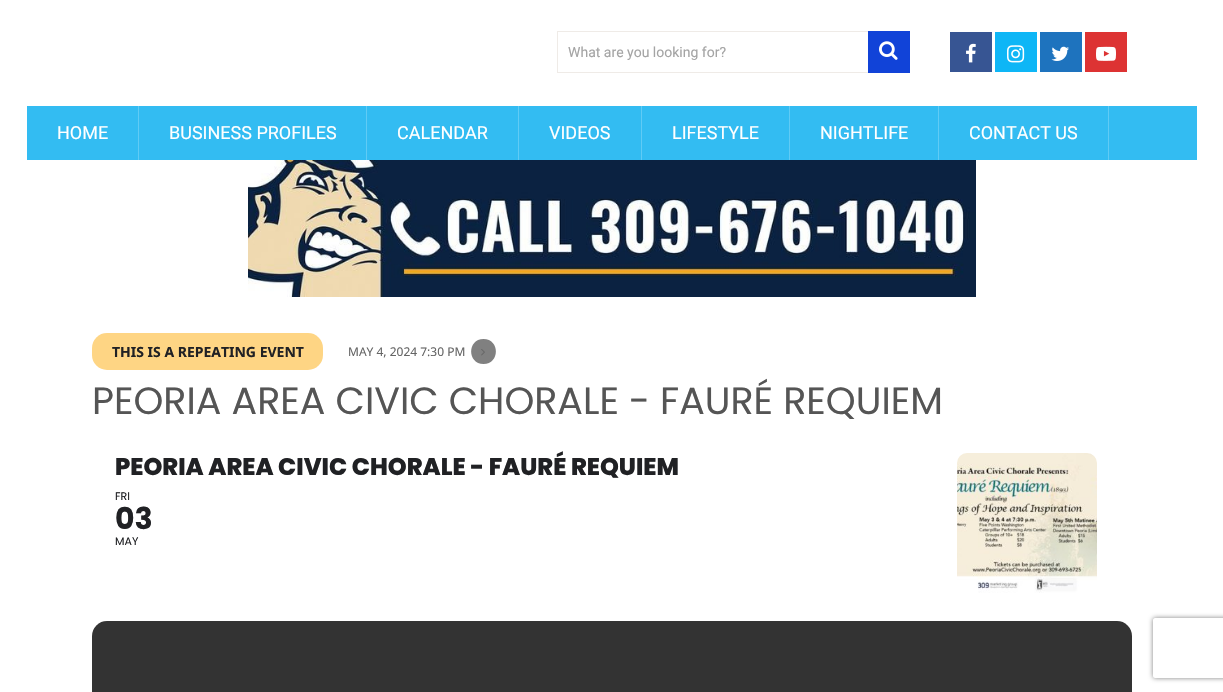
#include "include/core/SkBlurTypes.h"
#include "include/core/SkCanvas.h"
#include "include/core/SkData.h"
#include "include/core/SkFont.h"
#include "include/core/SkFontMgr.h"
#include "include/core/SkImage.h"
#include "include/core/SkMaskFilter.h"
#include "include/core/SkPaint.h"
#include "include/core/SkPathBuilder.h"
#include "include/core/SkTextBlob.h"
#include "include/effects/SkDashPathEffect.h"
#include "include/effects/SkGradientShader.h"
#include "include/utils/SkParsePath.h"

extern sk_sp<SkFontMgr> fontMgr;

void draw(SkCanvas* canvas) {
    SkPaint p;
    p.setAntiAlias(true);
    auto font = [&](const char* family, int weight, float size, bool italic = false) {
        SkFontStyle style(weight, SkFontStyle::kNormal_Width,
            italic ? SkFontStyle::kItalic_Slant : SkFontStyle::kUpright_Slant);
        SkFont result(fontMgr->matchFamilyStyle(family, style), size);
        result.setSubpixel(true);
        return result;
    };
    auto drawPhoto = [&](const char* path, float l, float t, float r, float b) {
        auto image = SkImages::DeferredFromEncodedData(SkData::MakeFromFileName(path));
        canvas->drawImageRect(image, SkRect::MakeLTRB(l, t, r, b), SkSamplingOptions());
    };
    canvas->clear(0xFFFFFFFF);
    p.setStyle(SkPaint::kStroke_Style);
    p.setStrokeWidth(1);
    p.setColor(0xFFEFEBE7);
    canvas->drawRect(SkRect::MakeLTRB(557.5f, 31.5f, 909.5f, 72.5f), p);
    auto font1 = font("Roboto", 400, 14);
    p.setStyle(SkPaint::kFill_Style);
    p.setColor(0xFFA4A4A4);
    canvas->drawString("What are you looking for?", 568, 57, font1, p);
    p.setColor(0xFF1143D8);
    canvas->drawRect(SkRect::MakeLTRB(868, 31, 910, 73), p);
    drawPhoto("media/1.png", 879, 41, 898, 60);
    p.setColor(0xFF375593);
    canvas->drawRect(SkRect::MakeLTRB(950, 32, 992, 72), p);
    drawPhoto("media/2.png", 966, 43, 976, 63);
    p.setColor(0xFF0EB6F6);
    canvas->drawRect(SkRect::MakeLTRB(995, 32, 1037, 72), p);
    drawPhoto("media/3.png", 1007, 45, 1025, 63);
    p.setColor(0xFF1E73BE);
    canvas->drawRect(SkRect::MakeLTRB(1040, 32, 1082, 72), p);
    drawPhoto("media/4.png", 1051, 46, 1069, 61);
    p.setColor(0xFFDD3333);
    canvas->drawRect(SkRect::MakeLTRB(1085, 32, 1127, 72), p);
    drawPhoto("media/5.png", 1096, 46, 1116, 61);
    p.setColor(0xFF33BCF2);
    canvas->drawRect(SkRect::MakeLTRB(27, 106, 1197, 160), p);
    p.setColor(0xFF60CBF5);
    canvas->drawRect(SkRect::MakeLTRB(138, 106, 139, 160), p);
    auto font2 = font("Roboto", 400, 18);
    p.setColor(0xFFFFFFFF);
    canvas->drawString("HOME", 57, 139, font2, p);
    p.setColor(0xFF60CBF5);
    canvas->drawRect(SkRect::MakeLTRB(366, 106, 367, 160), p);
    p.setColor(0xFFFFFFFF);
    canvas->drawString("BUSINESS PROFILES", 169, 139, font2, p);
    p.setColor(0xFF60CBF5);
    canvas->drawRect(SkRect::MakeLTRB(518, 106, 519, 160), p);
    p.setColor(0xFFFFFFFF);
    canvas->drawString("CALENDAR", 397, 139, font2, p);
    p.setColor(0xFF60CBF5);
    canvas->drawRect(SkRect::MakeLTRB(641, 106, 642, 160), p);
    p.setColor(0xFFFFFFFF);
    canvas->drawString("VIDEOS", 549, 139, font2, p);
    p.setColor(0xFF60CBF5);
    canvas->drawRect(SkRect::MakeLTRB(789, 106, 790, 160), p);
    p.setColor(0xFFFFFFFF);
    canvas->drawString("LIFESTYLE", 672, 139, font2, p);
    p.setColor(0xFF60CBF5);
    canvas->drawRect(SkRect::MakeLTRB(938, 106, 939, 160), p);
    p.setColor(0xFFFFFFFF);
    canvas->drawString("NIGHTLIFE", 820, 139, font2, p);
    p.setColor(0xFF60CBF5);
    canvas->drawRect(SkRect::MakeLTRB(1108, 106, 1109, 160), p);
    p.setColor(0xFFFFFFFF);
    canvas->drawString("CONTACT US", 969, 139, font2, p);
    drawPhoto("media/6.png", 248, 160, 976, 297);
    p.setColor(0xFFFED584);
    canvas->drawRoundRect(SkRect::MakeLTRB(92, 333, 323, 370), 15, 15, p);
    auto font3 = font("Noto Sans", 700, 14);
    p.setColor(0xFF202124);
    canvas->drawString("THIS IS A REPEATING EVENT", 112, 357, font3, p);
    auto font4 = font("Noto Sans", 400, 12);
    p.setColor(0xFF656565);
    canvas->drawString("MAY 4, 2024 7:30 PM", 348, 356, font4, p);
    p.setColor(0xFF808080);
    canvas->drawPath(SkPathBuilder().moveTo(483.5f, 339).cubicTo(500, 339, 500, 364, 483.5f, 364).cubicTo(467, 364, 467, 339, 483.5f, 339).close().detach(), p);
    drawPhoto("media/7.png", 481, 349, 485, 356);
    auto font5 = font("Poppins", 400, 38);
    p.setColor(0xFF555555);
    canvas->drawString("PEORIA AREA CIVIC CHORALE - FAURÉ REQUIEM", 92, 414, font5, p);
    auto font6 = font("Poppins", 800, 24);
    p.setColor(0xFF202124);
    canvas->drawString("PEORIA AREA CIVIC CHORALE - FAURÉ REQUIEM", 115, 475, font6, p);
    auto font7 = font("Poppins", 400, 11);
    canvas->drawString("FRI", 115, 500, font7, p);
    auto font8 = font("Poppins", 700, 30);
    canvas->drawString("03", 115, 529, font8, p);
    canvas->drawString("MAY", 115, 545, font7, p);
    drawPhoto("media/8.png", 957, 453, 1097, 593);
    p.setColor(0xFF333333);
    canvas->drawRoundRect(SkRect::MakeLTRB(92, 621, 1132, 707), 15, 15, p);
    canvas->save();
    canvas->clipPath(SkPathBuilder(SkPathFillType::kEvenOdd).moveTo(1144, 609).lineTo(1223, 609).lineTo(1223, 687).lineTo(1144, 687).close().moveTo(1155, 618).lineTo(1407, 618).cubicTo(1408, 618, 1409, 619, 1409, 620).lineTo(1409, 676).cubicTo(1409, 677, 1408, 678, 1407, 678).lineTo(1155, 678).cubicTo(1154, 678, 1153, 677, 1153, 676).lineTo(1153, 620).cubicTo(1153, 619, 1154, 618, 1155, 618).close().detach(), true);
    p.setColor(0xFF808080);
    p.setMaskFilter(SkMaskFilter::MakeBlur(kNormal_SkBlurStyle, 2.5f));
    canvas->drawRoundRect(SkRect::MakeLTRB(1153, 618, 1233, 678), 2, 2, p);
    p.setMaskFilter(nullptr);
    canvas->restore();
}
